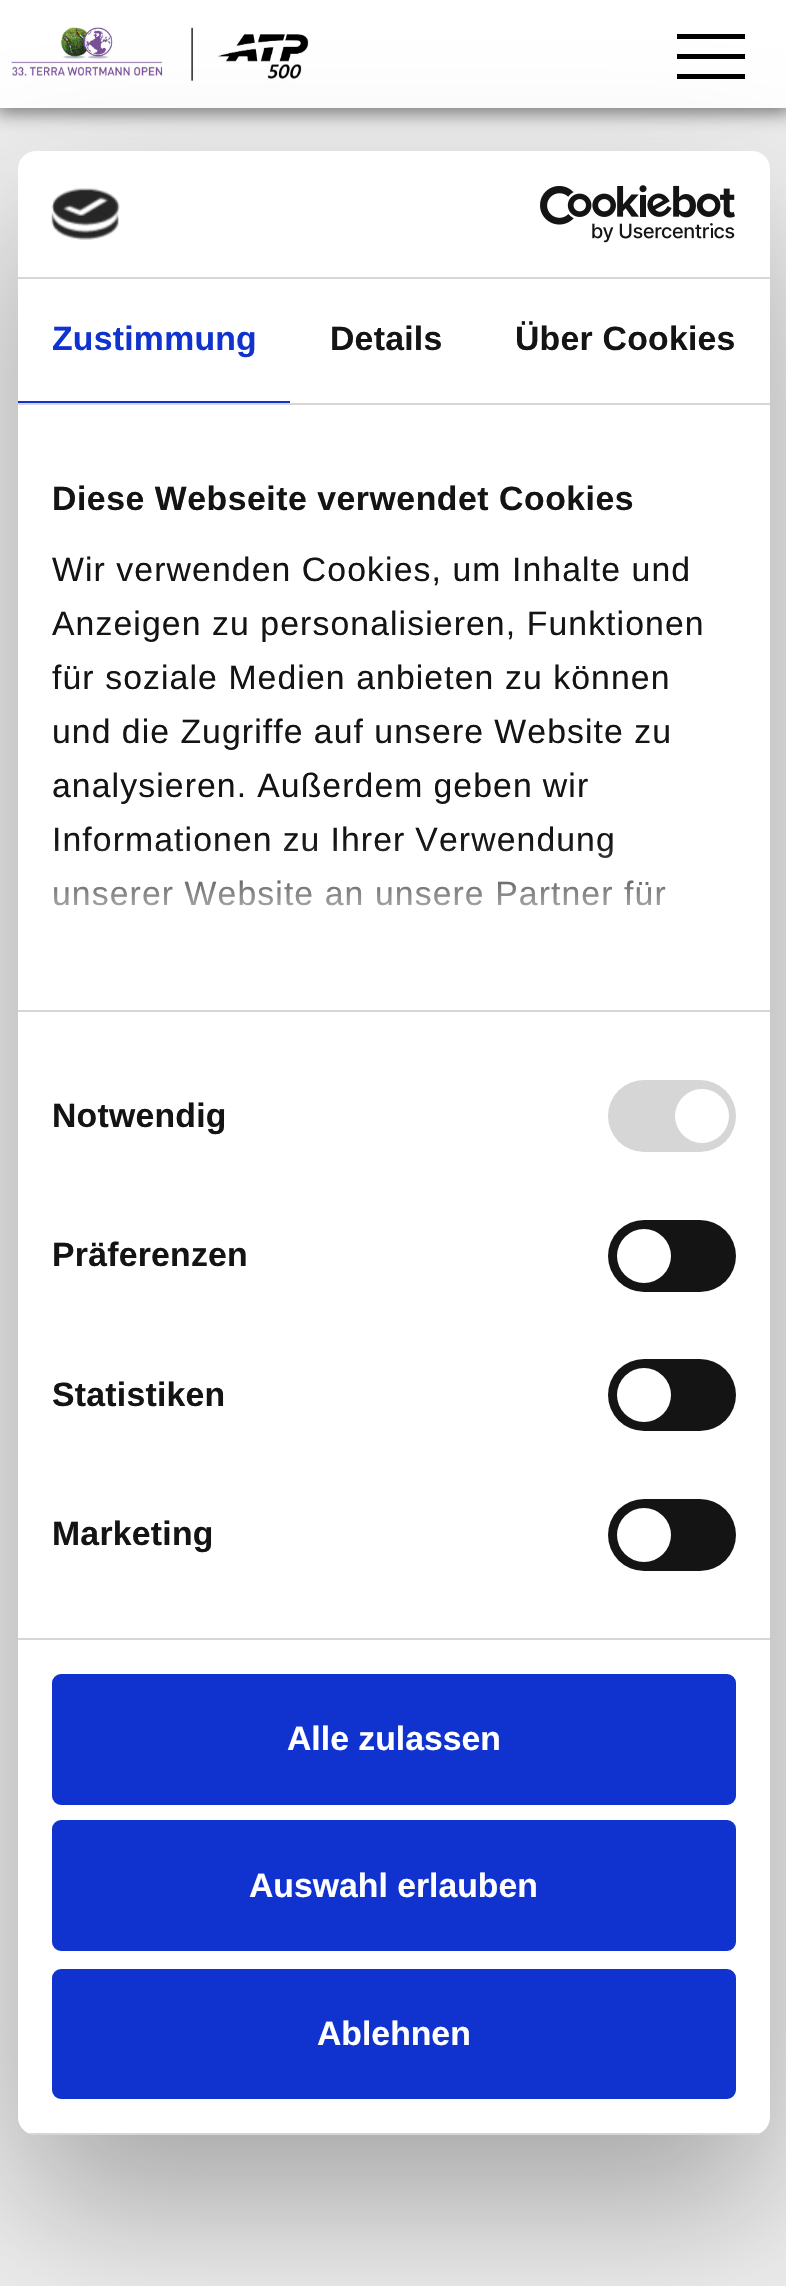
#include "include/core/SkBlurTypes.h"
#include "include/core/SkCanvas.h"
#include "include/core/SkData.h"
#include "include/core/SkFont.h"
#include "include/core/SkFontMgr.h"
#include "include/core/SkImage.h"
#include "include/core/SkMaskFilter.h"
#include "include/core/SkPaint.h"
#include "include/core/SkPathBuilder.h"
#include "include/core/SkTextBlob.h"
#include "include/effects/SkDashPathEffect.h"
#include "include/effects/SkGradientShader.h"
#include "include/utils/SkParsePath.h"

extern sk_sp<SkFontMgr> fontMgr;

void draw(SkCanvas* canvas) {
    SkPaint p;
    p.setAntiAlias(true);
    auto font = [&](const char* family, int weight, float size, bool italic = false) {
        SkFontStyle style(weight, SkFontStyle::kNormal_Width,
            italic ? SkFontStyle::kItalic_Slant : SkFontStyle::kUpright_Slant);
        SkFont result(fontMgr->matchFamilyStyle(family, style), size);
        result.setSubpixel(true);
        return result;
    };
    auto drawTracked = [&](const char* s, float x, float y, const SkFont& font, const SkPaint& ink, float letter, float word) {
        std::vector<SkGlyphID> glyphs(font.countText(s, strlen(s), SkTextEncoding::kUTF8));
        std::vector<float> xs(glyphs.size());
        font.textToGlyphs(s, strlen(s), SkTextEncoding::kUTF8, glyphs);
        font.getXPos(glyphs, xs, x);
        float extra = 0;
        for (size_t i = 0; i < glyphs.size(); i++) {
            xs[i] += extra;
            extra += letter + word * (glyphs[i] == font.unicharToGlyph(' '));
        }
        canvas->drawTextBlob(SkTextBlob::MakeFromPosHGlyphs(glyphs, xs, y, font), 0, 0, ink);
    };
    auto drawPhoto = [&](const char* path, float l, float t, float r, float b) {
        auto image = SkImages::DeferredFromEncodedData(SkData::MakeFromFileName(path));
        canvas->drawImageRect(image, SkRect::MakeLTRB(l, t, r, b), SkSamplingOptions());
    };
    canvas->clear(0xFFEEEEEE);
    p.setColor(0x80000000);
    p.setMaskFilter(SkMaskFilter::MakeBlur(kNormal_SkBlurStyle, 9));
    canvas->drawRect(SkRect::MakeLTRB(-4, -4, 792, 113), p);
    p.setMaskFilter(nullptr);
    p.setColor(0xFFFFFFFF);
    canvas->drawRect(SkRect::MakeLTRB(0, 0, 786, 108), p);
    drawPhoto("media/1.png", 11, 27, 309, 81);
    {
        const struct { float l, t, r, b; SkColor color; } items[] = {
            {677, 54, 745, 59, 0xFF000000},
            {677, 34, 745, 39, 0xFF000000},
            {677, 74, 745, 79, 0xFF000000},
        };
        for (auto [l, t, r, b, color] : items) {
            p.setColor(color);
            canvas->drawRect(SkRect::MakeLTRB(l, t, r, b), p);
        }
    }
    p.setColor(0x4D000000);
    p.setMaskFilter(SkMaskFilter::MakeBlur(kNormal_SkBlurStyle, 76.5f));
    canvas->drawRoundRect(SkRect::MakeLTRB(18, 223, 770, 2207), 18, 18, p);
    p.setMaskFilter(nullptr);
    p.setColor(0xFFFFFFFF);
    canvas->drawRoundRect(SkRect::MakeLTRB(18, 151, 770, 2135), 18, 18, p);
    p.setColor(0xFFD6D6D6);
    canvas->drawRect(SkRect::MakeLTRB(18, 277, 770, 279), p);
    drawPhoto("media/2.png", 51, 188, 120, 240);
    drawPhoto("media/3.png", 540, 185, 735, 243);
    canvas->drawRect(SkRect::MakeLTRB(18, 403, 770, 405), p);
    p.setColor(0xFF1032CF);
    canvas->drawRect(SkRect::MakeLTRB(18, 401, 290, 403), p);
    auto font1 = font("Liberation Sans", 700, 33.75f);
    drawTracked("Zustimmung", 52, 350, font1, p, 0.25f, 0);
    p.setColor(0xFF141414);
    drawTracked("Details", 330, 350, font1, p, 0.25f, 0);
    drawTracked("Über Cookies", 515, 350, font1, p, 0.25f, 0);
    p.setColor(0xFFD6D6D6);
    canvas->drawRect(SkRect::MakeLTRB(18, 1010, 770, 1012), p);
    p.setColor(0xFF141414);
    drawTracked("Diese Webseite verwendet Cookies", 52, 510, font1, p, 0.55f, 0);
    auto font2 = font("Liberation Sans", 400, 33.75f);
    {
        const struct { const char* s; float x, y; } items[] = {
            {"Wir verwenden Cookies, um Inhalte und", 52, 581},
            {"Anzeigen zu personalisieren, Funktionen", 52, 635},
            {"für soziale Medien anbieten zu können", 52, 689},
        };
        for (auto [s, x, y] : items) {
            drawTracked(s, x, y, font2, p, 1.1f, 0);
        }
    }
    drawTracked("und die Zugriffe auf unsere Website zu", 52, 743, font2, p, 1.1f, -0.25f);
    drawTracked("analysieren. Außerdem geben wir", 52, 797, font2, p, 1.1f, -0.5f);
    drawTracked("Informationen zu Ihrer Verwendung", 52, 851, font2, p, 1.1f, -0.5f);
    drawTracked("unserer Website an unsere Partner für", 52, 905, font2, p, 1.1f, 0);
    {
        const SkColor colors[] = {0xFFFFFFFF, 0xCCFFFFFF, 0x00FFFFFF};
        const float stops[] = {0, 0.5f, 1};
        const SkPoint ends[] = {{379, 1011}, {379, 842}};
        p.setShader(SkGradientShader::MakeLinear(ends, colors, stops, 3, SkTileMode::kClamp));
        p.setAlpha(255);
    }
    canvas->drawRect(SkRect::MakeLTRB(53, 844, 666, 906), p);
    p.setShader(nullptr);
    p.setColor(0xFFD6D6D6);
    canvas->drawRect(SkRect::MakeLTRB(18, 1638, 770, 1640), p);
    p.setColor(0xFF141414);
    drawTracked("Notwendig", 52, 1127, font1, p, 0.25f, 0);
    p.setColor(0xFFD6D6D6);
    canvas->drawRoundRect(SkRect::MakeLTRB(608, 1080, 736, 1152), 36, 36, p);
    p.setColor(0xFFFFFFFF);
    canvas->drawCircle(702, 1116, 27, p);
    p.setColor(0xFF141414);
    drawTracked("Präferenzen", 52, 1266, font1, p, 0.25f, 0);
    canvas->drawRoundRect(SkRect::MakeLTRB(608, 1220, 736, 1292), 36, 36, p);
    p.setColor(0xFFFFFFFF);
    canvas->drawCircle(644, 1256, 27, p);
    p.setColor(0xFF141414);
    drawTracked("Statistiken", 52, 1406, font1, p, 0.25f, 0);
    canvas->drawRoundRect(SkRect::MakeLTRB(608, 1359, 736, 1431), 36, 36, p);
    p.setColor(0xFFFFFFFF);
    canvas->drawCircle(644, 1395, 27, p);
    p.setColor(0xFF141414);
    drawTracked("Marketing", 52, 1545, font1, p, 0.25f, 0);
    canvas->drawRoundRect(SkRect::MakeLTRB(608, 1499, 736, 1571), 36, 36, p);
    p.setColor(0xFFFFFFFF);
    canvas->drawCircle(644, 1535, 27, p);
    canvas->save();
    canvas->clipPath(SkPathBuilder().moveTo(36, 151).lineTo(752, 151).cubicTo(762, 151, 770, 159, 770, 169).lineTo(770, 2117).cubicTo(770, 2127, 762, 2135, 752, 2135).lineTo(36, 2135).cubicTo(26, 2135, 18, 2127, 18, 2117).lineTo(18, 169).cubicTo(18, 159, 26, 151, 36, 151).close().detach(), true);
    p.setColor(0xFFD6D6D6);
    canvas->drawRect(SkRect::MakeLTRB(28, 2133, 760, 2135), p);
    canvas->restore();
    p.setColor(0xFF1032CF);
    canvas->drawRoundRect(SkRect::MakeLTRB(54.5f, 1676.5f, 733.5f, 1802.5f), 6.5f, 6.5f, p);
    p.setStyle(SkPaint::kStroke_Style);
    p.setStrokeWidth(5);
    canvas->drawRoundRect(SkRect::MakeLTRB(54.5f, 1676.5f, 733.5f, 1802.5f), 6.5f, 6.5f, p);
    p.setStyle(SkPaint::kFill_Style);
    p.setColor(0xFFFFFFFF);
    canvas->drawString("Alle zulassen", 287, 1750, font1, p);
    p.setColor(0xFF1032CF);
    canvas->drawRoundRect(SkRect::MakeLTRB(54.5f, 1822.5f, 733.5f, 1948.5f), 6.5f, 6.5f, p);
    p.setStyle(SkPaint::kStroke_Style);
    canvas->drawRoundRect(SkRect::MakeLTRB(54.5f, 1822.5f, 733.5f, 1948.5f), 6.5f, 6.5f, p);
    p.setStyle(SkPaint::kFill_Style);
    p.setColor(0xFFFFFFFF);
    canvas->drawString("Auswahl erlauben", 249, 1897, font1, p);
    p.setColor(0xFF1032CF);
    canvas->drawRoundRect(SkRect::MakeLTRB(54.5f, 1971.5f, 733.5f, 2096.5f), 6.5f, 6.5f, p);
    p.setStyle(SkPaint::kStroke_Style);
    canvas->drawRoundRect(SkRect::MakeLTRB(54.5f, 1971.5f, 733.5f, 2096.5f), 6.5f, 6.5f, p);
    p.setStyle(SkPaint::kFill_Style);
    p.setColor(0xFFFFFFFF);
    canvas->drawString("Ablehnen", 317, 2045, font1, p);
}
